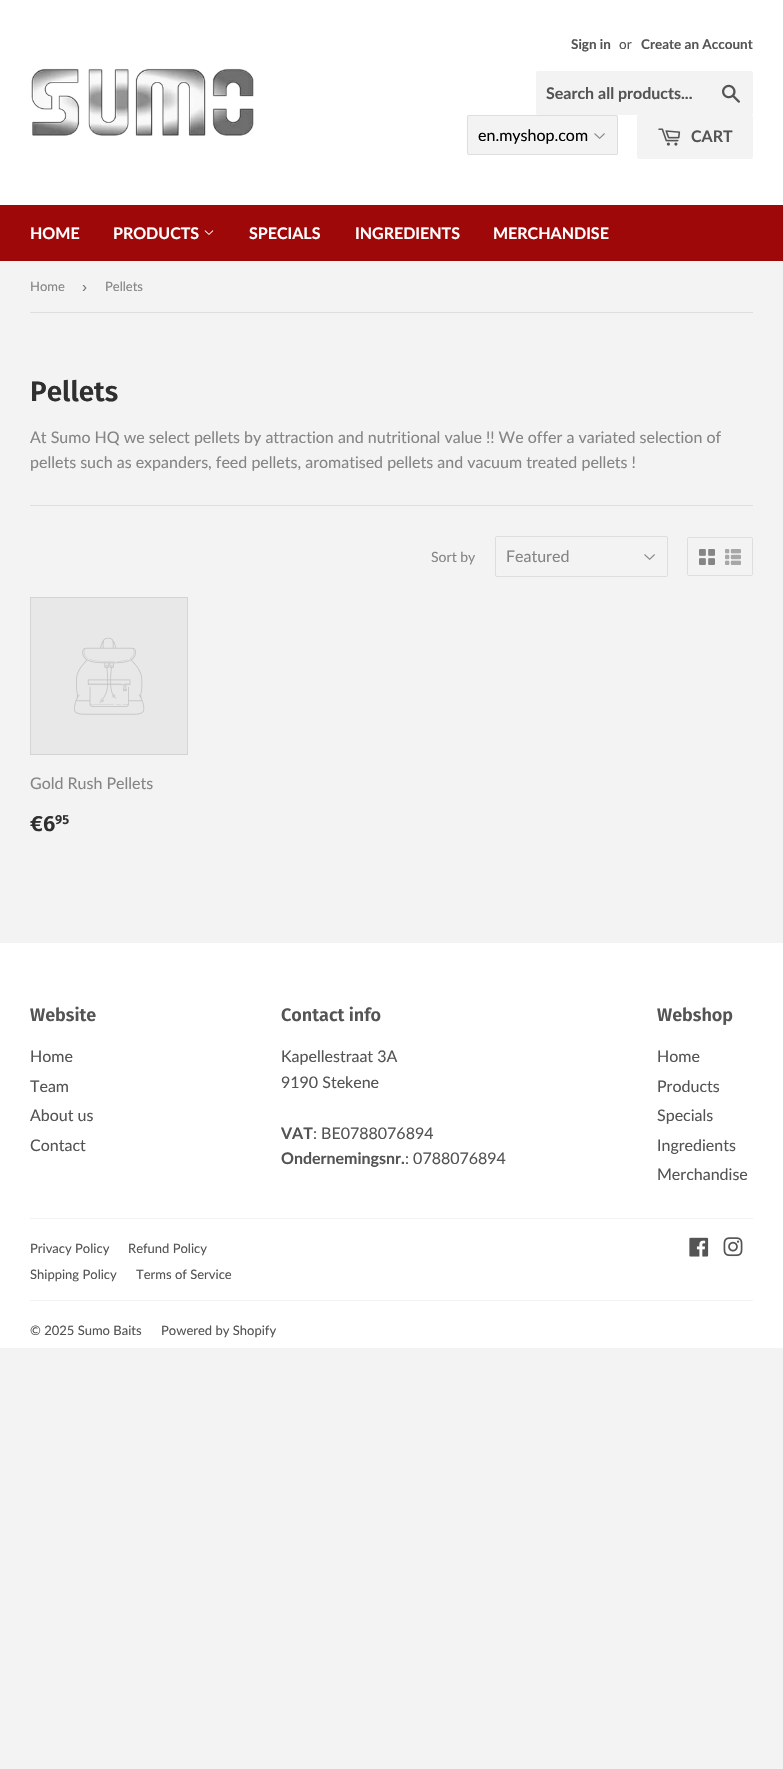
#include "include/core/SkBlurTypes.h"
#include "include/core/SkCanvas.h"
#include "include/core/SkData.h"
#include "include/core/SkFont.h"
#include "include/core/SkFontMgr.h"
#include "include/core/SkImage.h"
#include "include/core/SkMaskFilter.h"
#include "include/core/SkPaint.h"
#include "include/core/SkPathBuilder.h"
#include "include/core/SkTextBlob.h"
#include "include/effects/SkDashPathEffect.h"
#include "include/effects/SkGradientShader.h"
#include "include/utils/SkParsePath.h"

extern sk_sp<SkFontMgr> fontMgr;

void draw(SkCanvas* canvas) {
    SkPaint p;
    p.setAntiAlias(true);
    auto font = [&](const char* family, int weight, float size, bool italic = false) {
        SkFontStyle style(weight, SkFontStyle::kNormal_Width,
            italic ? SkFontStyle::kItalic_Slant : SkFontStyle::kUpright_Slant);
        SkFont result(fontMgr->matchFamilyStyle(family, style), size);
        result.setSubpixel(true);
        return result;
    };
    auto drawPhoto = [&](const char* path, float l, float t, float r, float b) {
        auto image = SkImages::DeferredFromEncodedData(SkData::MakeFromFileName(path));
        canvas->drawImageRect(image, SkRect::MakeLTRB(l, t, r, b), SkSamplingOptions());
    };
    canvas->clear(0xFFF3F3F3);
    p.setColor(0xFFFFFFFF);
    canvas->drawRect(SkRect::MakeLTRB(0, 0, 783, 205), p);
    drawPhoto("media/1.png", 31, 68, 254, 136);
    auto font1 = font("Lato", 700, 13.5f);
    p.setColor(0xFF545454);
    canvas->drawString("Sign in", 571, 49, font1, p);
    auto font2 = font("Lato", 400, 13.5f);
    canvas->drawString("or", 619, 49, font2, p);
    canvas->drawString("Create an Account", 641, 49, font1, p);
    p.setColor(0xFFF3F3F3);
    canvas->drawRoundRect(SkRect::MakeLTRB(536, 71, 753, 115), 2, 2, p);
    auto font3 = font("Lato", 700, 16);
    p.setColor(0xFF545454);
    canvas->drawString("Search all products...", 546, 99, font3, p);
    drawPhoto("media/2.png", 722, 84, 740, 103);
    p.setColor(0xFFF3F3F3);
    canvas->drawRoundRect(SkRect::MakeLTRB(467, 115, 618, 155), 2, 2, p);
    drawPhoto("media/3.png", 594, 133, 605, 139);
    p.setStyle(SkPaint::kStroke_Style);
    p.setStrokeWidth(1);
    p.setColor(0xFFDEDEDE);
    canvas->drawRoundRect(SkRect::MakeLTRB(467.5f, 115.5f, 617.5f, 154.5f), 1.5f, 1.5f, p);
    auto font4 = font("Lato", 400, 16);
    p.setStyle(SkPaint::kFill_Style);
    p.setColor(0xFF000000);
    canvas->drawString("en.myshop.com", 478, 141, font4, p);
    p.setColor(0xFFF3F3F3);
    canvas->drawRoundRect(SkRect::MakeLTRB(637, 115, 753, 159), 2, 2, p);
    drawPhoto("media/4.png", 658, 128, 681, 146);
    p.setColor(0xFF545454);
    canvas->drawString("CART", 691, 142, font3, p);
    p.setColor(0xFF9E0808);
    canvas->drawRect(SkRect::MakeLTRB(0, 205, 783, 261), p);
    p.setColor(0xFFFFFFFF);
    canvas->drawString("HOME", 30, 239, font3, p);
    canvas->drawString("PRODUCTS", 113, 239, font3, p);
    drawPhoto("media/5.png", 204, 230, 214, 235);
    {
        const struct { const char* s; float x, y; } items[] = {
            {"SPECIALS", 249, 239},
            {"INGREDIENTS", 355, 239},
            {"MERCHANDISE", 493, 239},
        };
        for (auto [s, x, y] : items) {
            canvas->drawString(s, x, y, font3, p);
        }
    }
    p.setColor(0xFFDEDEDE);
    canvas->drawRect(SkRect::MakeLTRB(30, 312, 753, 313), p);
    auto font5 = font("Lato", 400, 13);
    p.setColor(0xFF858585);
    canvas->drawString("Home", 30, 291, font5, p);
    auto font6 = font("Liberation Sans", 400, 15);
    p.setColor(0xFF767676);
    canvas->drawString("›", 82, 292, font6, p);
    p.setColor(0xFF858585);
    canvas->drawString("Pellets", 105, 291, font5, p);
    auto font7 = font("Fira Sans", 600, 28);
    p.setColor(0xFF2F2F2F);
    canvas->drawString("Pellets", 30, 401, font7, p);
    p.setColor(0xFF858585);
    canvas->drawString("At Sumo HQ we select pellets by attraction and nutritional value !! We offer a variated selection of", 30, 443, font4, p);
    canvas->drawString("pellets such as expanders, feed pellets, aromatised pellets and vacuum treated pellets !", 30, 468, font4, p);
    p.setColor(0xFFDEDEDE);
    canvas->drawRect(SkRect::MakeLTRB(30, 505, 753, 506), p);
    auto font8 = font("Lato", 400, 14);
    p.setColor(0xFF858585);
    canvas->drawString("Sort by", 431, 562, font8, p);
    drawPhoto("media/3.png", 644, 554, 655, 560);
    p.setStyle(SkPaint::kStroke_Style);
    p.setColor(0xFFDEDEDE);
    canvas->drawRoundRect(SkRect::MakeLTRB(495.5f, 536.5f, 667.5f, 576.5f), 1.5f, 1.5f, p);
    p.setStyle(SkPaint::kFill_Style);
    p.setColor(0xFF858585);
    canvas->drawString("Featured", 506, 562, font4, p);
    p.setStyle(SkPaint::kStroke_Style);
    p.setColor(0xFFDEDEDE);
    canvas->drawRoundRect(SkRect::MakeLTRB(687.5f, 537.5f, 752.5f, 575.5f), 1.5f, 1.5f, p);
    drawPhoto("media/6.png", 699, 549, 715, 565);
    drawPhoto("media/7.png", 725, 549, 741, 565);
    p.setStyle(SkPaint::kFill_Style);
    p.setColor(0xFFE8E8E8);
    canvas->drawRect(SkRect::MakeLTRB(30.5f, 597.5f, 187.5f, 754.5f), p);
    p.setStyle(SkPaint::kStroke_Style);
    p.setColor(0xFFD4D4D4);
    canvas->drawRect(SkRect::MakeLTRB(30.5f, 597.5f, 187.5f, 754.5f), p);
    drawPhoto("media/8.png", 74, 637, 145, 715);
    p.setStyle(SkPaint::kFill_Style);
    p.setColor(0xFF858585);
    canvas->drawString("Gold Rush Pellets", 30, 789, font4, p);
    auto font9 = font("Fira Sans", 600, 22);
    p.setColor(0xFF2F2F2F);
    canvas->drawString("€6", 30, 831, font9, p);
    auto font10 = font("Fira Sans", 600, 13);
    canvas->drawString("95", 55, 824, font10, p);
    p.setColor(0xFFFFFFFF);
    canvas->drawRect(SkRect::MakeLTRB(0, 943, 783, 1348), p);
    auto font11 = font("Fira Sans", 600, 18);
    p.setColor(0xFF545454);
    canvas->drawString("Website", 30, 1021, font11, p);
    {
        const struct { const char* s; float x, y; } items[] = {
            {"Home", 30, 1062},
            {"Team", 30, 1092},
            {"About us", 30, 1121},
            {"Contact", 30, 1151},
        };
        for (auto [s, x, y] : items) {
            canvas->drawString(s, x, y, font4, p);
        }
    }
    canvas->drawString("Contact info", 281, 1021, font11, p);
    canvas->drawString("Kapellestraat 3A", 281, 1062, font4, p);
    canvas->drawString("9190 Stekene", 281, 1088, font4, p);
    canvas->drawString("VAT", 281, 1139, font3, p);
    canvas->drawString(": BE0788076894", 313, 1139, font4, p);
    canvas->drawString("Ondernemingsnr.", 281, 1164, font3, p);
    canvas->drawString(": 0788076894", 405, 1164, font4, p);
    canvas->drawString("Webshop", 657, 1021, font11, p);
    {
        const struct { const char* s; float x, y; } items[] = {
            {"Home", 657, 1062},
            {"Products", 657, 1092},
            {"Specials", 657, 1121},
            {"Ingredients", 657, 1151},
            {"Merchandise", 657, 1180},
        };
        for (auto [s, x, y] : items) {
            canvas->drawString(s, x, y, font4, p);
        }
    }
    p.setColor(0xFFF2F2F2);
    canvas->drawRect(SkRect::MakeLTRB(30, 1218, 753, 1219), p);
    p.setColor(0xFF545454);
    {
        const struct { const char* s; float x, y; } items[] = {
            {"Privacy Policy", 30, 1253},
            {"Refund Policy", 128, 1253},
            {"Shipping Policy", 30, 1279},
            {"Terms of Service", 136, 1279},
        };
        for (auto [s, x, y] : items) {
            canvas->drawString(s, x, y, font5, p);
        }
    }
    drawPhoto("media/9.png", 689, 1237, 709, 1257);
    drawPhoto("media/10.png", 723, 1237, 743, 1257);
    p.setColor(0xFFF2F2F2);
    canvas->drawRect(SkRect::MakeLTRB(30, 1300, 753, 1301), p);
    p.setColor(0xFF545454);
    canvas->drawString("© 2025 Sumo Baits", 30, 1335, font5, p);
    canvas->drawString("Powered by Shopify", 161, 1335, font5, p);
}
